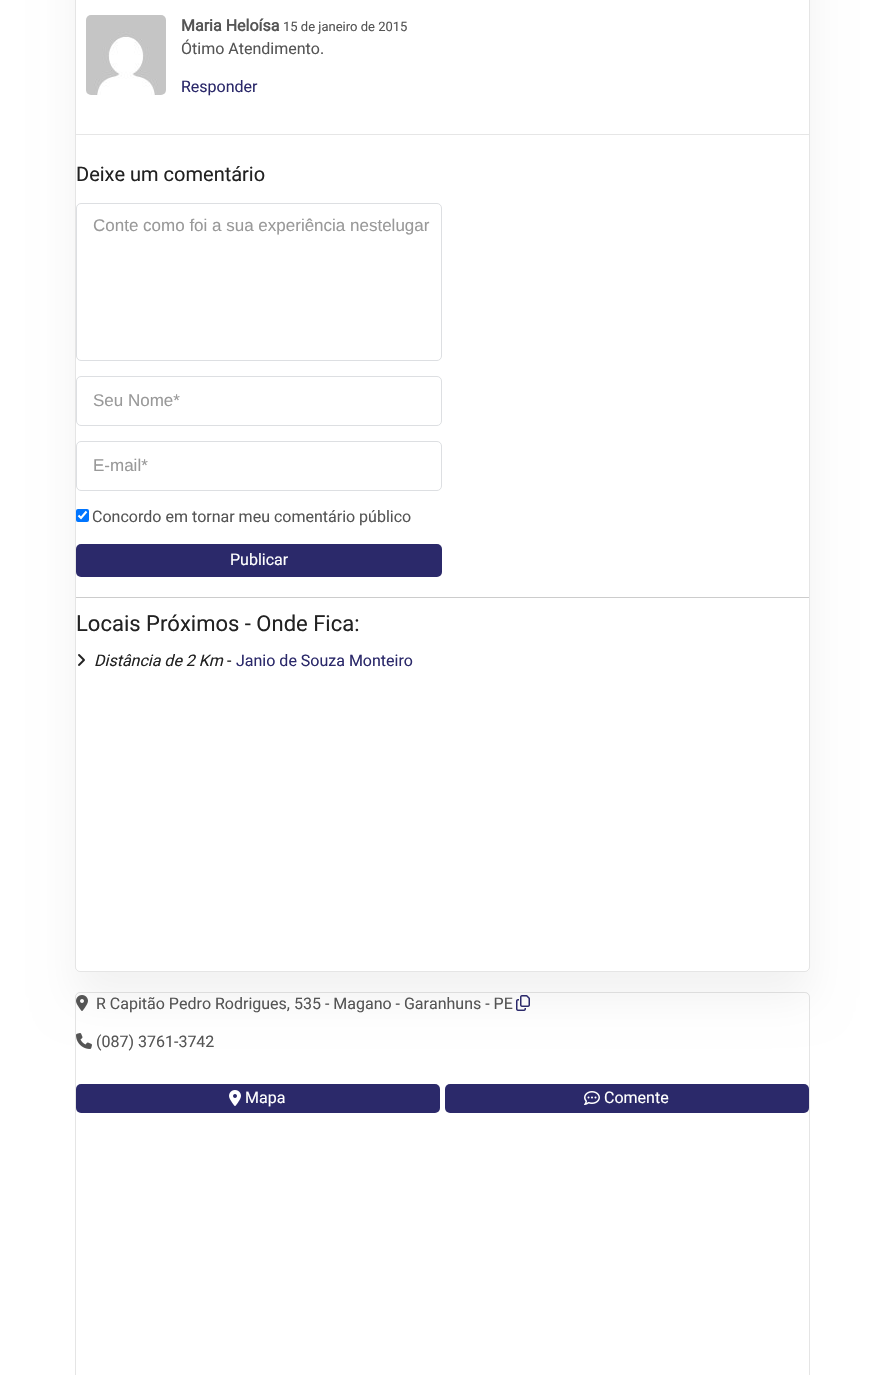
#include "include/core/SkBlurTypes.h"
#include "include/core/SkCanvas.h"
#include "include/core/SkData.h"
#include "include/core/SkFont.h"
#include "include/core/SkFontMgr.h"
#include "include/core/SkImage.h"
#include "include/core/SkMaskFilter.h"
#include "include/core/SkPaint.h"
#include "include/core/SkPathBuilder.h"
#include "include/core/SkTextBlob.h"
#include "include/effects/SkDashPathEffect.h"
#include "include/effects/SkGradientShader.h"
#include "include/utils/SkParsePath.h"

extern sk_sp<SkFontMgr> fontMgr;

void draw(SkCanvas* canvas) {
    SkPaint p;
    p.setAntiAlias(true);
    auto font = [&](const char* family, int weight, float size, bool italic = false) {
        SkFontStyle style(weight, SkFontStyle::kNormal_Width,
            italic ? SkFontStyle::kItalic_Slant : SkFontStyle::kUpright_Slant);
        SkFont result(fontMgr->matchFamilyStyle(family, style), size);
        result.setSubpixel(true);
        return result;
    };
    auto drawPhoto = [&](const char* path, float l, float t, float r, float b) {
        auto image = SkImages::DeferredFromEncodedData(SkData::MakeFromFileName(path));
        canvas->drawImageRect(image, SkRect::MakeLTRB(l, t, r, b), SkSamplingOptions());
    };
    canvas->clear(0xFFFFFFFF);
    canvas->save();
    canvas->clipPath(SkPathBuilder(SkPathFillType::kEvenOdd).moveTo(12, 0).lineTo(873, 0).lineTo(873, 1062).lineTo(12, 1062).close().moveTo(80, -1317).lineTo(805, -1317).cubicTo(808, -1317, 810, -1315, 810, -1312).lineTo(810, 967).cubicTo(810, 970, 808, 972, 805, 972).lineTo(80, 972).cubicTo(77, 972, 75, 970, 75, 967).lineTo(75, -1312).cubicTo(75, -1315, 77, -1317, 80, -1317).close().detach(), true);
    p.setColor(0x0D000000);
    p.setMaskFilter(SkMaskFilter::MakeBlur(kNormal_SkBlurStyle, 20.5f));
    canvas->drawRoundRect(SkRect::MakeLTRB(75, -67, 810, 999), 5, 5, p);
    p.setMaskFilter(nullptr);
    canvas->restore();
    p.setStyle(SkPaint::kStroke_Style);
    p.setStrokeWidth(1);
    p.setColor(0x1A000000);
    canvas->drawRoundRect(SkRect::MakeLTRB(75.5f, -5.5f, 809.5f, 971.5f), 4.5f, 4.5f, p);
    p.setStyle(SkPaint::kFill_Style);
    p.setColor(0xFFE6E6E6);
    canvas->drawRect(SkRect::MakeLTRB(76, 134, 809, 135), p);
    drawPhoto("media/1.png", 86, 15, 166, 95);
    auto font1 = font("Roboto", 700, 16);
    p.setColor(0xFF555555);
    canvas->drawString("Maria Heloísa", 181, 31, font1, p);
    auto font2 = font("Roboto", 400, 13);
    canvas->drawString("15 de janeiro de 2015", 283, 31, font2, p);
    auto font3 = font("Roboto", 400, 16);
    canvas->drawString("Ótimo Atendimento.", 181, 54, font3, p);
    p.setColor(0xFF2B296A);
    canvas->drawString("Responder", 181, 92, font3, p);
    auto font4 = font("Roboto", 400, 20);
    p.setColor(0xFF222222);
    canvas->drawString("Deixe um comentário", 76, 181, font4, p);
    p.setStyle(SkPaint::kStroke_Style);
    p.setColor(0xFFDDDFE2);
    canvas->drawRoundRect(SkRect::MakeLTRB(76.5f, 203.5f, 441.5f, 360.5f), 4.5f, 4.5f, p);
    auto font5 = font("Liberation Sans", 400, 17);
    p.setStyle(SkPaint::kFill_Style);
    p.setColor(0xFF999999);
    canvas->drawString("Conte como foi a sua experiência nestelugar", 93, 231, font5, p);
    p.setStyle(SkPaint::kStroke_Style);
    p.setColor(0xFFDDDFE2);
    canvas->drawRoundRect(SkRect::MakeLTRB(76.5f, 376.5f, 441.5f, 425.5f), 4.5f, 4.5f, p);
    p.setStyle(SkPaint::kFill_Style);
    p.setColor(0xFF999999);
    canvas->drawString("Seu Nome*", 93, 406, font5, p);
    p.setStyle(SkPaint::kStroke_Style);
    p.setColor(0xFFDDDFE2);
    canvas->drawRoundRect(SkRect::MakeLTRB(76.5f, 441.5f, 441.5f, 490.5f), 4.5f, 4.5f, p);
    p.setStyle(SkPaint::kFill_Style);
    p.setColor(0xFF999999);
    canvas->drawString("E-mail*", 93, 471, font5, p);
    p.setColor(0xFF0075FF);
    canvas->drawRoundRect(SkRect::MakeLTRB(76, 509, 89, 522), 2, 2, p);
    p.setStyle(SkPaint::kStroke_Style);
    p.setStrokeWidth(2.1f);
    p.setColor(0xFFFFFFFF);
    canvas->drawPath(SkPathBuilder().moveTo(78.5f, 515.5f).lineTo(81, 518).lineTo(86.5f, 511.5f).detach(), p);
    p.setStyle(SkPaint::kFill_Style);
    p.setColor(0xFF555555);
    canvas->drawString("Concordo em tornar meu comentário público", 92, 522, font3, p);
    p.setColor(0xFF2B296A);
    canvas->drawRoundRect(SkRect::MakeLTRB(76, 544, 442, 577), 5, 5, p);
    p.setColor(0xFFFFFFFF);
    canvas->drawString("Publicar", 230, 565, font3, p);
    p.setColor(0xFFCCCCCC);
    canvas->drawRect(SkRect::MakeLTRB(76, 597, 809, 598), p);
    auto font6 = font("Roboto", 400, 22);
    p.setColor(0xFF222222);
    canvas->drawString("Locais Próximos - Onde Fica:", 76, 631, font6, p);
    drawPhoto("media/2.png", 78, 654, 85, 666);
    auto font7 = font("Roboto", 400, 16, true);
    canvas->drawString("Distância de 2 Km", 94, 666, font7, p);
    canvas->drawString("-", 227, 666, font3, p);
    p.setColor(0xFF2B296A);
    canvas->drawString("Janio de Souza Monteiro", 236, 666, font3, p);
    p.setStyle(SkPaint::kStroke_Style);
    p.setStrokeWidth(1);
    p.setColor(0x1A000000);
    canvas->drawRoundRect(SkRect::MakeLTRB(75.5f, 992.5f, 809.5f, 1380.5f), 4.5f, 4.5f, p);
    drawPhoto("media/3.png", 76, 995, 88, 1011);
    p.setStyle(SkPaint::kFill_Style);
    p.setColor(0xFF555555);
    canvas->drawString("R Capitão Pedro Rodrigues, 535 - Magano - Garanhuns - PE", 96, 1009, font3, p);
    drawPhoto("media/4.png", 516, 995, 530, 1011);
    drawPhoto("media/5.png", 76, 1033, 92, 1049);
    canvas->drawString("(087) 3761-3742", 96, 1047, font3, p);
    p.setColor(0xFF2B296A);
    canvas->drawRoundRect(SkRect::MakeLTRB(76, 1084, 440, 1113), 5, 5, p);
    drawPhoto("media/6.png", 229, 1090, 241, 1106);
    p.setColor(0xFFFFFFFF);
    canvas->drawString("Mapa", 245, 1103, font3, p);
    p.setColor(0xFF2B296A);
    canvas->drawRoundRect(SkRect::MakeLTRB(445, 1084, 809, 1113), 5, 5, p);
    drawPhoto("media/7.png", 584, 1091, 600, 1105);
    p.setColor(0xFFFFFFFF);
    canvas->drawString("Comente", 604, 1103, font3, p);
}
